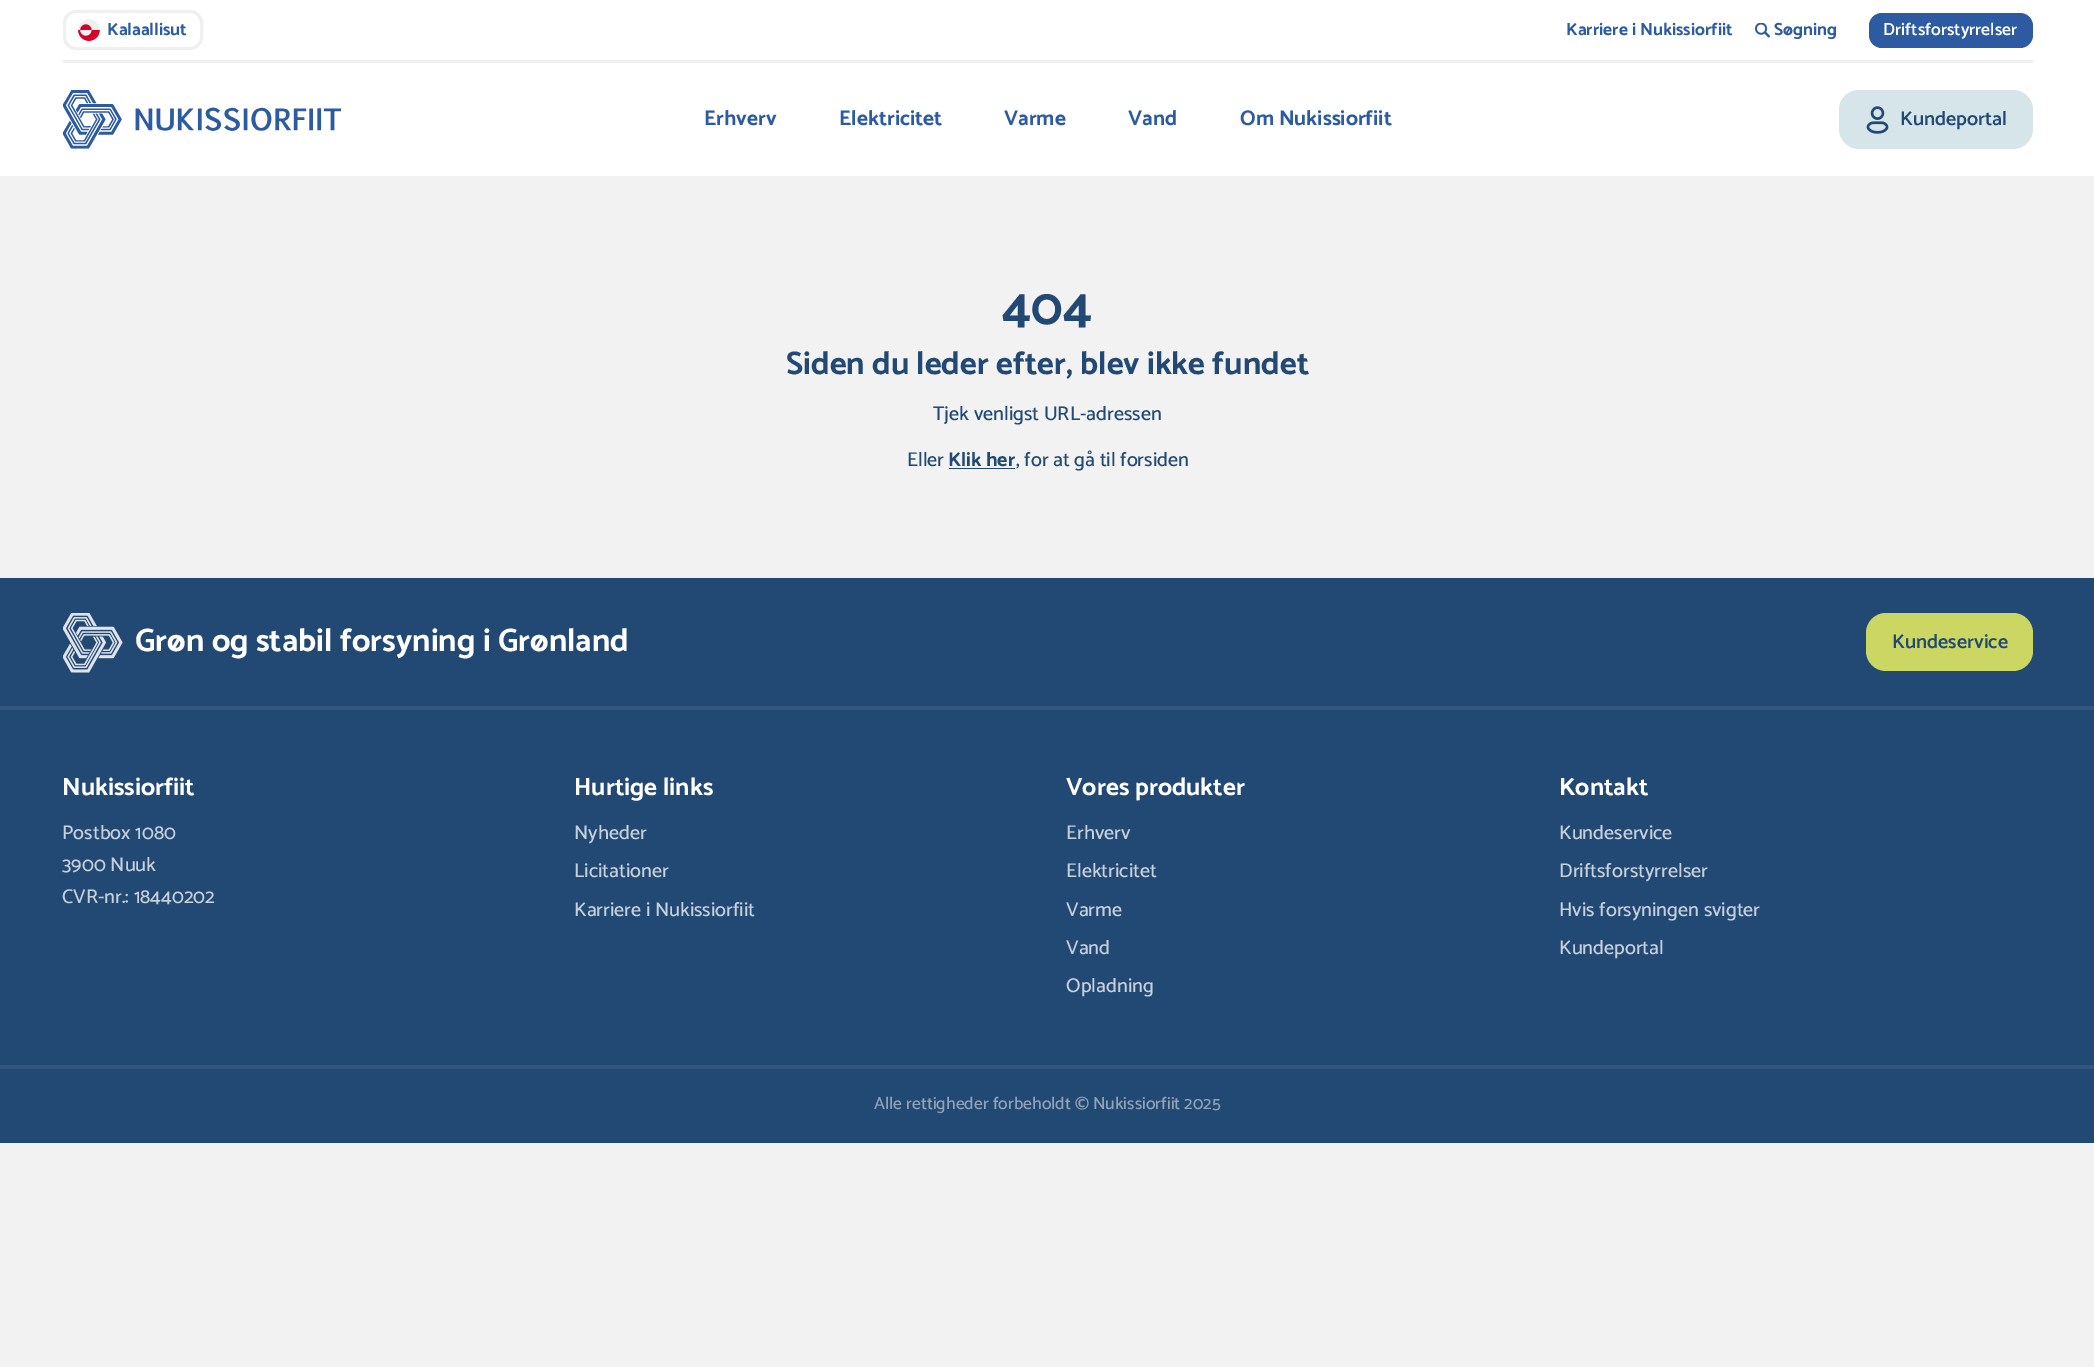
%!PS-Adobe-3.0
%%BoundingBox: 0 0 2094 1367
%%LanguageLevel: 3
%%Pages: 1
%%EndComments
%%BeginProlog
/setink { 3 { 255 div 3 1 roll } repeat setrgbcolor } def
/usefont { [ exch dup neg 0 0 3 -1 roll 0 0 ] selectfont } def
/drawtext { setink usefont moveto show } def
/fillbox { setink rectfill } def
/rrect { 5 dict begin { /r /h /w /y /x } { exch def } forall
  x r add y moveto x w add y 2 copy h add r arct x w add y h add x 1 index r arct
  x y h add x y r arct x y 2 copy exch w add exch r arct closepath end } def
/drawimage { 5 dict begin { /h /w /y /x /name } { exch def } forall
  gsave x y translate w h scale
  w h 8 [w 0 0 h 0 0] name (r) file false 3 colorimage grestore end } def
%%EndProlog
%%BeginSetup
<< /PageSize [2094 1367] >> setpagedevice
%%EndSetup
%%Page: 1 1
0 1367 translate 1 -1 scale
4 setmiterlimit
0 0 2094 1367 242 242 242 fillbox
0 0 2094 176 255 255 255 fillbox
240 240 240 setink
3 setlinewidth
64.5 11.5 137 37 11.5 rrect stroke
(assets/img1.rgb) 78 19 22 22 drawimage
(Kalaallisut) 107 35 /Catamaran-Bold 17.5 44 91 161 drawtext
(Karriere i Nukissiorfiit) 1566 35 /Catamaran-Bold 17.5 44 91 161 drawtext
(assets/img2.rgb) 1755 23 15 15 drawimage
(Søgning) 1774 35 /Catamaran-Bold 17.5 44 91 161 drawtext
1869 13 164 35 13 rrect fill
(Driftsforstyrrelser) 1883 35 /Catamaran-SemiBold 17.5 255 255 255 drawtext
63 60 1970 3 240 240 240 fillbox
(assets/img3.rgb) 63 90 278 59 drawimage
(Erhverv) 704 125 /Catamaran-Bold 21.25 44 91 161 drawtext
(Elektricitet) 839 125 /Catamaran-Bold 21.25 44 91 161 drawtext
(Varme) 1004 125 /Catamaran-Bold 21.25 44 91 161 drawtext
(Vand) 1128 125 /Catamaran-Bold 21.25 44 91 161 drawtext
(Om Nukissiorfiit) 1240 125 /Catamaran-Bold 21.25 44 91 161 drawtext
214 229 234 setink
1839 90 194 59 20 rrect fill
(assets/img4.rgb) 1866 106 23 28 drawimage
(Kundeportal) 1900 125 /Catamaran-SemiBold 20 34 73 116 drawtext
(404) 1002 324 /Catamaran-Bold 52 34 73 116 drawtext
(Siden du leder efter, blev ikke fundet) 786 374 /Catamaran-Bold 32.5 34 73 116 drawtext
(Tjek venligst URL-adressen) 933 420 /Catamaran-Medium 20 34 73 116 drawtext
(Eller) 907 466 /Catamaran-Medium 20 34 73 116 drawtext
(Klik her) 948 466 /Catamaran-Bold 20 34 73 116 drawtext
949 468 66 1 34 73 116 fillbox
(, for at gå til forsiden) 1016 466 /Catamaran-Medium 20 34 73 116 drawtext
0 578 2094 128 34 73 116 fillbox
0 706 2094 4 50 87 126 fillbox
(assets/img5.rgb) 63 613 60 60 drawimage
(Grøn og stabil forsyning i Grønland) 135 651 /Catamaran-Bold 32.5 255 255 255 drawtext
204 214 98 setink
1866 613 167 58 20 rrect fill
(Kundeservice) 1892 648 /Catamaran-SemiBold 20 34 73 116 drawtext
0 710 2094 355 34 73 116 fillbox
0 1065 2094 4 50 87 126 fillbox
(Nukissiorfiit) 62 795 /Catamaran-Bold 25 255 255 255 drawtext
(Postbox 1080) 62 839 /Catamaran-Medium 20 199 209 220 drawtext
(3900 Nuuk) 62 871 /Catamaran-Medium 20 199 209 220 drawtext
(CVR-nr.: 18440202) 62 903 /Catamaran-Medium 20 199 209 220 drawtext
(Hurtige links) 574 795 /Catamaran-Bold 25 255 255 255 drawtext
(Nyheder) 574 839 /Catamaran-Medium 20 199 209 220 drawtext
(Licitationer) 574 877 /Catamaran-Medium 20 199 209 220 drawtext
(Karriere i Nukissiorfiit) 574 916 /Catamaran-Medium 20 199 209 220 drawtext
(Vores produkter) 1066 795 /Catamaran-Bold 25 255 255 255 drawtext
(Erhverv) 1066 839 /Catamaran-Medium 20 199 209 220 drawtext
(Elektricitet) 1066 877 /Catamaran-Medium 20 199 209 220 drawtext
(Varme) 1066 916 /Catamaran-Medium 20 199 209 220 drawtext
(Vand) 1066 954 /Catamaran-Medium 20 199 209 220 drawtext
(Opladning) 1066 992 /Catamaran-Medium 20 199 209 220 drawtext
(Kontakt) 1559 795 /Catamaran-Bold 25 255 255 255 drawtext
(Kundeservice) 1559 839 /Catamaran-Medium 20 199 209 220 drawtext
(Driftsforstyrrelser) 1559 877 /Catamaran-Medium 20 199 209 220 drawtext
(Hvis forsyningen svigter) 1559 916 /Catamaran-Medium 20 199 209 220 drawtext
(Kundeportal) 1559 954 /Catamaran-Medium 20 199 209 220 drawtext
0 1069 2094 74 34 73 116 fillbox
(Alle rettigheder forbeholdt © Nukissiorfiit 2025) 874 1109 /Catamaran-Medium 17.5 145 164 186 drawtext
showpage
%%EOF
